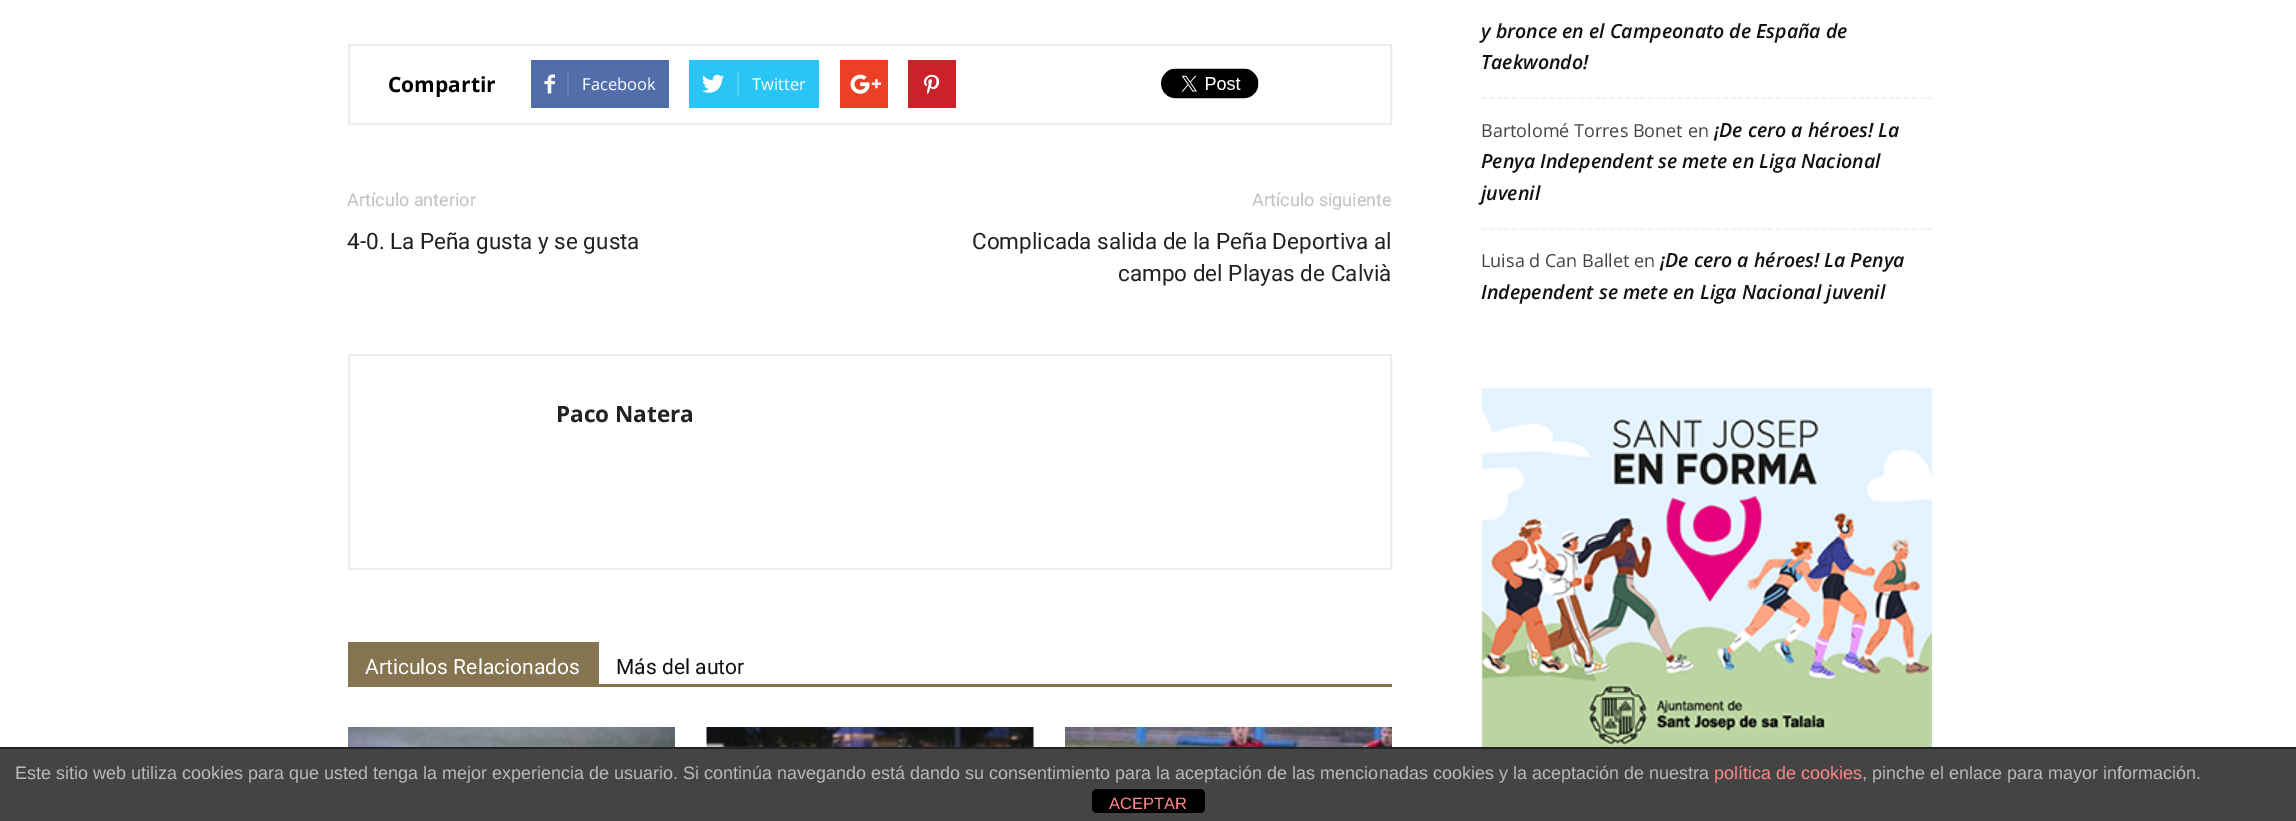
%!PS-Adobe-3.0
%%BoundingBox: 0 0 2296 821
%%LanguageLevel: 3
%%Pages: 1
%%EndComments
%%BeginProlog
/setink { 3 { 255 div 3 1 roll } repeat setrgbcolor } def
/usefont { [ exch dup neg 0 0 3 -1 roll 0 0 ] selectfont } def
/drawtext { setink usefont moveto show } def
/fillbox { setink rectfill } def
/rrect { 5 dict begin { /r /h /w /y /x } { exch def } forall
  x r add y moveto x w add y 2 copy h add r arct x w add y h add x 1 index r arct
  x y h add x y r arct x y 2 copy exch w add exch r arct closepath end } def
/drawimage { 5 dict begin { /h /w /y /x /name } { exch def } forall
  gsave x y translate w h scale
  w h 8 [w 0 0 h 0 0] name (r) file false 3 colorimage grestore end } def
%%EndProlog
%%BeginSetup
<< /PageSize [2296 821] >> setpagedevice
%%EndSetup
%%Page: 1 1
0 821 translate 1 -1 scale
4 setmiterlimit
0 0 2296 821 255 255 255 fillbox
237 237 237 setink
2 setlinewidth
349 45 1042 79 rectstroke
(Compartir) 388 92 /OpenSans-Bold 21 0 0 0 drawtext
531 60 138 48 81 110 171 fillbox
(assets/img1.rgb) 544 74 11 20 drawimage
567 72 2 24 98 125 179 fillbox
(Facebook) 582 90 /OpenSans-Regular 16.5 255 255 255 drawtext
689 60 130 48 41 197 246 fillbox
(assets/img2.rgb) 702 74 22 19 drawimage
737 72 2 24 84 209 248 fillbox
(Twitter) 752 90 /OpenSans-Regular 16.5 255 255 255 drawtext
840 60 48 48 235 64 38 fillbox
(assets/img3.rgb) 850 74 31 20 drawimage
908 60 48 48 202 33 42 fillbox
(assets/img4.rgb) 924 74 16 21 drawimage
(assets/img5.rgb) 1161 68 98 31 drawimage
(Artículo anterior) 347 206 /Roboto-Regular 18 193 193 193 drawtext
(4-0. La Peña gusta y se gusta) 347 249 /Roboto-Regular 22.5 34 34 34 drawtext
(Artículo siguiente) 1252 206 /Roboto-Regular 18 193 193 193 drawtext
(Complicada salida de la Peña Deportiva al) 972 249 /Roboto-Regular 22.5 34 34 34 drawtext
(campo del Playas de Calvià) 1118 281 /Roboto-Regular 22.5 34 34 34 drawtext
237 237 237 setink
349 355 1042 214 rectstroke
(Paco Natera) 556 422 /OpenSans-Bold 22.5 34 34 34 drawtext
348 684 1044 3 133 116 80 fillbox
348 642 251 42 133 116 80 fillbox
(Articulos Relacionados) 365 674 /Roboto-Regular 21 255 255 255 drawtext
(Más del autor) 616 674 /Roboto-Regular 21 17 17 17 drawtext
(assets/img6.rgb) 348 727 327 20 drawimage
(assets/img7.rgb) 706 727 328 20 drawimage
(assets/img8.rgb) 1065 727 327 20 drawimage
241 241 241 setink
1.5 setlinewidth
[4.5 3.04] 0 setdash
1482 98 moveto 1932 98 lineto stroke
(y bronce en el Campeonato de España de) 1481 38 /OpenSans-SemiBoldItalic 19.5 17 17 17 drawtext
(Taekwondo!) 1481 69 /OpenSans-SemiBoldItalic 19.5 17 17 17 drawtext
241 241 241 setink
1482 229 moveto 1932 229 lineto stroke
(Bartolomé Torres Bonet en) 1481 137 /OpenSans-Regular 18 68 68 68 drawtext
(¡De cero a héroes! La) 1714 137 /OpenSans-SemiBoldItalic 19.5 17 17 17 drawtext
(Penya Independent se mete en Liga Nacional) 1481 168 /OpenSans-SemiBoldItalic 19.5 17 17 17 drawtext
(juvenil) 1481 200 /OpenSans-SemiBoldItalic 19.5 17 17 17 drawtext
(Luisa d Can Ballet en) 1481 267 /OpenSans-Regular 18 68 68 68 drawtext
(¡De cero a héroes! La Penya) 1660 267 /OpenSans-SemiBoldItalic 19.5 17 17 17 drawtext
(Independent se mete en Liga Nacional juvenil) 1481 299 /OpenSans-SemiBoldItalic 19.5 17 17 17 drawtext
(assets/img9.rgb) 1481 388 451 359 drawimage
0 749 2296 72 68 68 68 fillbox
0 747 2296 2 34 34 34 fillbox
(Este sitio web utiliza cookies para que usted tenga la mejor experiencia de usuario. Si continúa navegando está dando su consentimiento para la aceptación de las mencionadas cookies y la aceptación de nuestra) 15 779 /LiberationSans-Regular 18 187 187 187 drawtext
(política de cookies) 1714 779 /LiberationSans-Regular 18 255 136 136 drawtext
(, pinche el enlace para mayor información.) 1862 779 /LiberationSans-Regular 18 187 187 187 drawtext
0 0 0 setink
1092 789 113 24 5 rrect fill
(ACEPTAR) 1109 809 /LiberationSans-Regular 16.5 255 136 136 drawtext
showpage
%%EOF
